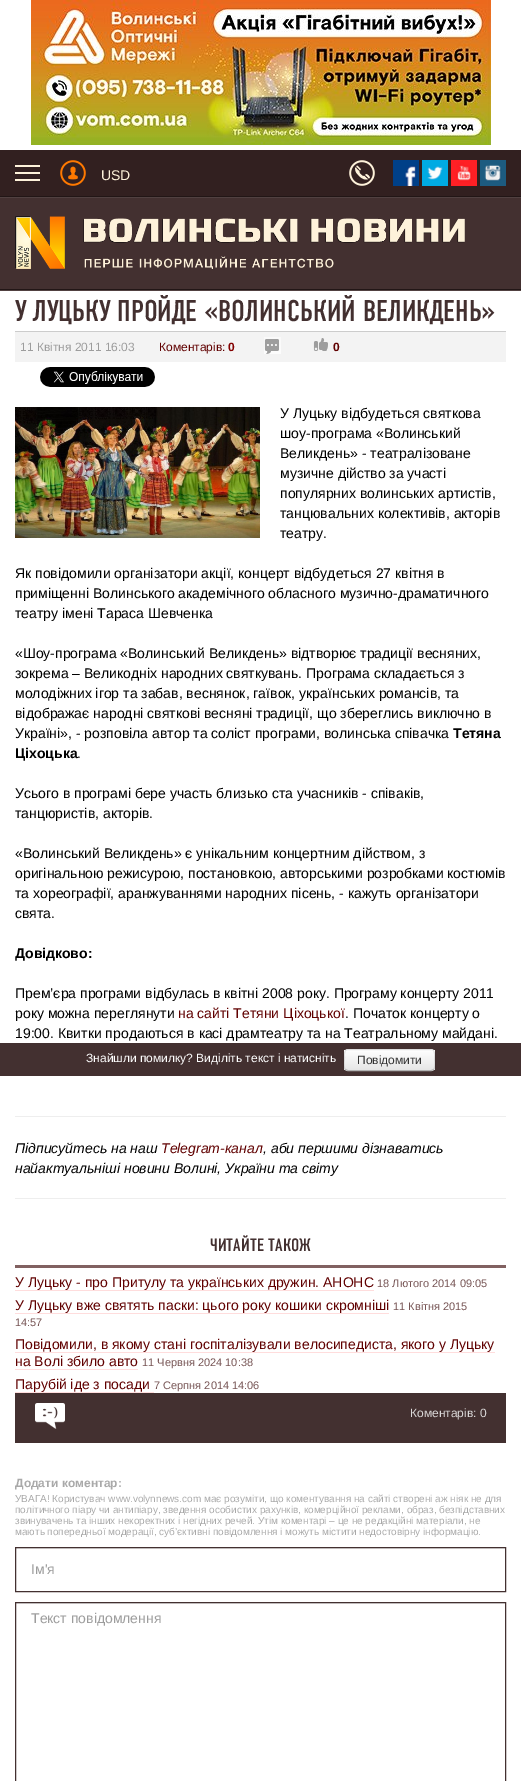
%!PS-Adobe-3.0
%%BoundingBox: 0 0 521 1781
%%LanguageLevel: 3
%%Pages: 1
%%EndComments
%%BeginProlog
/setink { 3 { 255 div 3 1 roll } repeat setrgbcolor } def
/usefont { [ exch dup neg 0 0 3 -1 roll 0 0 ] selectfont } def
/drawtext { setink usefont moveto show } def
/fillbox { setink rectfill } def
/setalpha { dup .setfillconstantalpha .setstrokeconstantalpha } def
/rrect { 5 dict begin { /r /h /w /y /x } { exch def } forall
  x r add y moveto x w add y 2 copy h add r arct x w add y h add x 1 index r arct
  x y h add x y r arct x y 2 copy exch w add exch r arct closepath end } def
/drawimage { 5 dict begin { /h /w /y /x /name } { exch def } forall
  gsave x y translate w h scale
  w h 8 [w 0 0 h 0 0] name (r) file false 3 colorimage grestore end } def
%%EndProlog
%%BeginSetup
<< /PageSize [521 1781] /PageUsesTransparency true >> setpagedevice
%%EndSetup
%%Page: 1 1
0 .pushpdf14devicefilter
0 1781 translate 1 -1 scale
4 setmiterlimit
0 0 521 1781 255 255 255 fillbox
(assets/img1.rgb) 31 0 460 145 drawimage
0 198 521 91 67 48 48 fillbox
0 150 521 46 50 32 32 fillbox
15 165 25 2 254 242 218 fillbox
15 172 25 2 254 242 218 fillbox
15 179 25 2 254 242 218 fillbox
(assets/img2.rgb) 60 160 26 26 drawimage
(USD) 101 180 /LiberationSans-Regular 14 254 242 218 drawtext
(assets/img3.rgb) 349 160 26 26 drawimage
(assets/img4.rgb) 393 160 26 26 drawimage
(assets/img5.rgb) 422 160 26 26 drawimage
(assets/img6.rgb) 451 160 26 26 drawimage
(assets/img7.rgb) 480 160 26 26 drawimage
(assets/img8.rgb) 0 196 521 2 drawimage
(assets/img9.rgb) 15 216 450 53 drawimage
(assets/img8.rgb) 0 289 521 2 drawimage
(У ЛУЦЬКУ ПРОЙДЕ «ВОЛИНСЬКИЙ ВЕЛИКДЕНЬ») 15 321 /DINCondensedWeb-Regular 30 67 48 48 drawtext
15 332 491 30 243 243 243 fillbox
15 331 491 1 204 204 204 fillbox
(11 Квітня 2011 16:03) 20 351 /LiberationSans-Regular 12 157 157 157 drawtext
(Коментарів:) 159 351 /LiberationSans-Regular 12 96 0 0 drawtext
(0) 228 351 /LiberationSans-Bold 12 131 0 0 drawtext
(assets/img10.rgb) 264 337 17 17 drawimage
(assets/img11.rgb) 313 338 15 13 drawimage
(0) 333 351 /LiberationSans-Bold 12 96 0 0 drawtext
(assets/img12.rgb) 40 367 115 20 drawimage
(assets/img13.rgb) 15 407 245 131 drawimage
(У Луцьку відбудеться святкова) 280 418 /LiberationSans-Regular 14 0 0 0 drawtext
(шоу-програма «Волинський) 280 438 /LiberationSans-Regular 14 0 0 0 drawtext
(Великдень» - театралізоване) 280 458 /LiberationSans-Regular 14 0 0 0 drawtext
(музичне дійство за участі) 280 478 /LiberationSans-Regular 14 0 0 0 drawtext
(популярних волинських артистів,) 280 498 /LiberationSans-Regular 14 0 0 0 drawtext
(танцювальних колективів, акторів) 280 518 /LiberationSans-Regular 14 0 0 0 drawtext
(театру.) 280 538 /LiberationSans-Regular 14 0 0 0 drawtext
(Як повідомили організатори акції, концерт відбудеться 27 квітня в) 15 578 /LiberationSans-Regular 14 0 0 0 drawtext
(приміщенні Волинського академічного обласного музично-драматичного) 15 598 /LiberationSans-Regular 14 0 0 0 drawtext
(театру імені Тараса Шевченка) 15 618 /LiberationSans-Regular 14 0 0 0 drawtext
(«Шоу-програма «Волинський Великдень» відтворює традиції весняних,) 15 658 /LiberationSans-Regular 14 0 0 0 drawtext
(зокрема – Великодніх народних святкувань. Програма складається з) 15 678 /LiberationSans-Regular 14 0 0 0 drawtext
(молодіжних ігор та забав, веснянок, гаївок, українських романсів, та) 15 698 /LiberationSans-Regular 14 0 0 0 drawtext
(відображає народні святкові весняні традиції, що збереглись виключно в) 15 718 /LiberationSans-Regular 14 0 0 0 drawtext
(Україні», - розповіла автор та соліст програми, волинська співачка) 15 738 /LiberationSans-Regular 14 0 0 0 drawtext
(Тетяна) 453 738 /LiberationSans-Bold 14 0 0 0 drawtext
(Ціхоцька) 15 758 /LiberationSans-Bold 14 0 0 0 drawtext
(.) 77 758 /LiberationSans-Regular 14 0 0 0 drawtext
(Усього в програмі бере участь близько ста учасників - співаків,) 15 798 /LiberationSans-Regular 14 0 0 0 drawtext
(танцюристів, акторів.) 15 818 /LiberationSans-Regular 14 0 0 0 drawtext
(«Волинський Великдень» є унікальним концертним дійством, з) 15 858 /LiberationSans-Regular 14 0 0 0 drawtext
(оригінальною режисурою, постановкою, авторськими розробками костюмів) 15 878 /LiberationSans-Regular 14 0 0 0 drawtext
(та хореографії, аранжуваннями народних пісень, - кажуть організатори) 15 898 /LiberationSans-Regular 14 0 0 0 drawtext
(свята.) 15 918 /LiberationSans-Regular 14 0 0 0 drawtext
(Довідково:) 15 958 /LiberationSans-Bold 14 0 0 0 drawtext
(Прем’єра програми відбулась в квітні 2008 року. Програму концерту 2011) 15 998 /LiberationSans-Regular 14 0 0 0 drawtext
(року можна переглянути) 15 1018 /LiberationSans-Regular 14 0 0 0 drawtext
(на сайті Тетяни Ціхоцької) 178 1018 /LiberationSans-Regular 14 96 0 0 drawtext
(. Початок концерту о) 345 1018 /LiberationSans-Regular 14 0 0 0 drawtext
(19:00. Квитки продаються в касі драмтеатру та на Театральному майдані.) 15 1038 /LiberationSans-Regular 14 0 0 0 drawtext
0 1043 521 33 67 48 48 fillbox
(Знайшли помилку? Виділіть текст і натисніть) 86 1062 /LiberationSans-Regular 12 255 255 255 drawtext
245 245 245 setink
344 1049 91 22 4 rrect fill
gsave
344 1049 91 22 4 rrect clip newpath
gsave 344 1050 moveto 435 1050 lineto 435 1070 lineto 344 1070 lineto closepath clip newpath
<< /ShadingType 2 /ColorSpace /DeviceRGB /Coords [390 1050 390 1070] /Extend [true true] /Function << /FunctionType 2 /Domain [0 1] /C0 [1 1 1] /C1 [0.902 0.902 0.902] /N 1 >> >> shfill grestore
grestore
179 179 179 setink
433.5 1069.5 moveto 431.5 1070.5 lineto 347.5 1070.5 lineto 345.5 1069.5 lineto stroke
0.1 setalpha
0 0 0 setink
345.5 1069.5 moveto 343 1067 344.5 1060.5 344.5 1057.5 curveto 344.5 1055 343.5 1049.5 348 1049.5 curveto 431 1049.5 lineto 435.5 1049.5 434.5 1055 434.5 1057.5 curveto 434.5 1060.5 436 1067 433.5 1069.5 curveto stroke
1 setalpha
(Повідомити) 357 1064 /LiberationSans-Regular 12 51 51 51 drawtext
15 1116 491 1 238 238 238 fillbox
(Підписуйтесь на наш) 15 1153 /LiberationSans-Italic 14 0 0 0 drawtext
(Telegram-канал) 161 1153 /LiberationSans-Italic 14 96 0 0 drawtext
(, аби першими дізнаватись) 263 1153 /LiberationSans-Italic 14 0 0 0 drawtext
(найактуальніші новини Волині, України та світу) 15 1173 /LiberationSans-Italic 14 0 0 0 drawtext
15 1198 491 1 238 238 238 fillbox
15 1265 491 3 129 97 97 fillbox
(ЧИТАЙТЕ ТАКОЖ) 210 1251 /DINCondensedWeb-Regular 18 67 48 48 drawtext
(У Луцьку - про Притулу та українських дружин. АНОНС) 15 1287 /LiberationSans-Regular 14 96 0 0 drawtext
15 1290 359 1 255 221 221 fillbox
(18 Лютого 2014 09:05) 377 1287 /LiberationSans-Regular 11 119 85 85 drawtext
(У Луцьку вже святять паски: цього року кошики скромніші) 15 1310 /LiberationSans-Regular 14 96 0 0 drawtext
15 1313 374 1 255 221 221 fillbox
(11 Квітня 2015) 393 1310 /LiberationSans-Regular 11 119 85 85 drawtext
(14:57) 15 1326 /LiberationSans-Regular 11 119 85 85 drawtext
(Повідомили, в якому стані госпіталізували велосипедиста, якого у Луцьку) 15 1349 /LiberationSans-Regular 14 96 0 0 drawtext
15 1352 480 1 255 221 221 fillbox
(на Волі збило авто) 15 1366 /LiberationSans-Regular 14 96 0 0 drawtext
15 1369 123 1 255 221 221 fillbox
(11 Червня 2024 10:38) 142 1366 /LiberationSans-Regular 11 119 85 85 drawtext
(Парубій іде з посади) 15 1389 /LiberationSans-Regular 14 96 0 0 drawtext
15 1392 139 1 255 221 221 fillbox
(7 Серпня 2014 14:06) 154 1389 /LiberationSans-Regular 11 119 85 85 drawtext
15 1393 491 50 67 48 48 fillbox
(assets/img14.rgb) 35 1403 30 26 drawimage
(Коментарів: 0) 410 1417 /LiberationSans-Regular 12 218 216 216 drawtext
(Додати коментар:) 15 1487 /LiberationSans-Bold 12 169 169 169 drawtext
(УВАГА! Користувач www.volynnews.com має розуміти, що коментування на сайті створені аж ніяк не для) 15 1502 /LiberationSans-Regular 10 169 169 169 drawtext
(політичного піару чи антипіару, зведення особистих рахунків, комерційної реклами, образ, безпідставних) 15 1513 /LiberationSans-Regular 10 169 169 169 drawtext
(звинувачень та інших некоректних і негідних речей. Утім коментарі – це не редакційні матеріали, не) 15 1524 /LiberationSans-Regular 10 169 169 169 drawtext
(мають попередньої модерації, суб’єктивні повідомлення і можуть містити недостовірну інформацію.) 15 1535 /LiberationSans-Regular 10 169 169 169 drawtext
16 1548 489 1 236 236 236 fillbox
67 48 48 setink
15.5 1547.5 490 44 rectstroke
(Ім'я) 31 1574 /LiberationSans-Regular 14 157 157 157 drawtext
16 1603 489 1 236 236 236 fillbox
67 48 48 setink
15.5 1602.5 490 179 rectstroke
(Текст повідомлення) 31 1623 /LiberationSans-Regular 14 157 157 157 drawtext
.poppdf14devicefilter showpage
%%EOF
